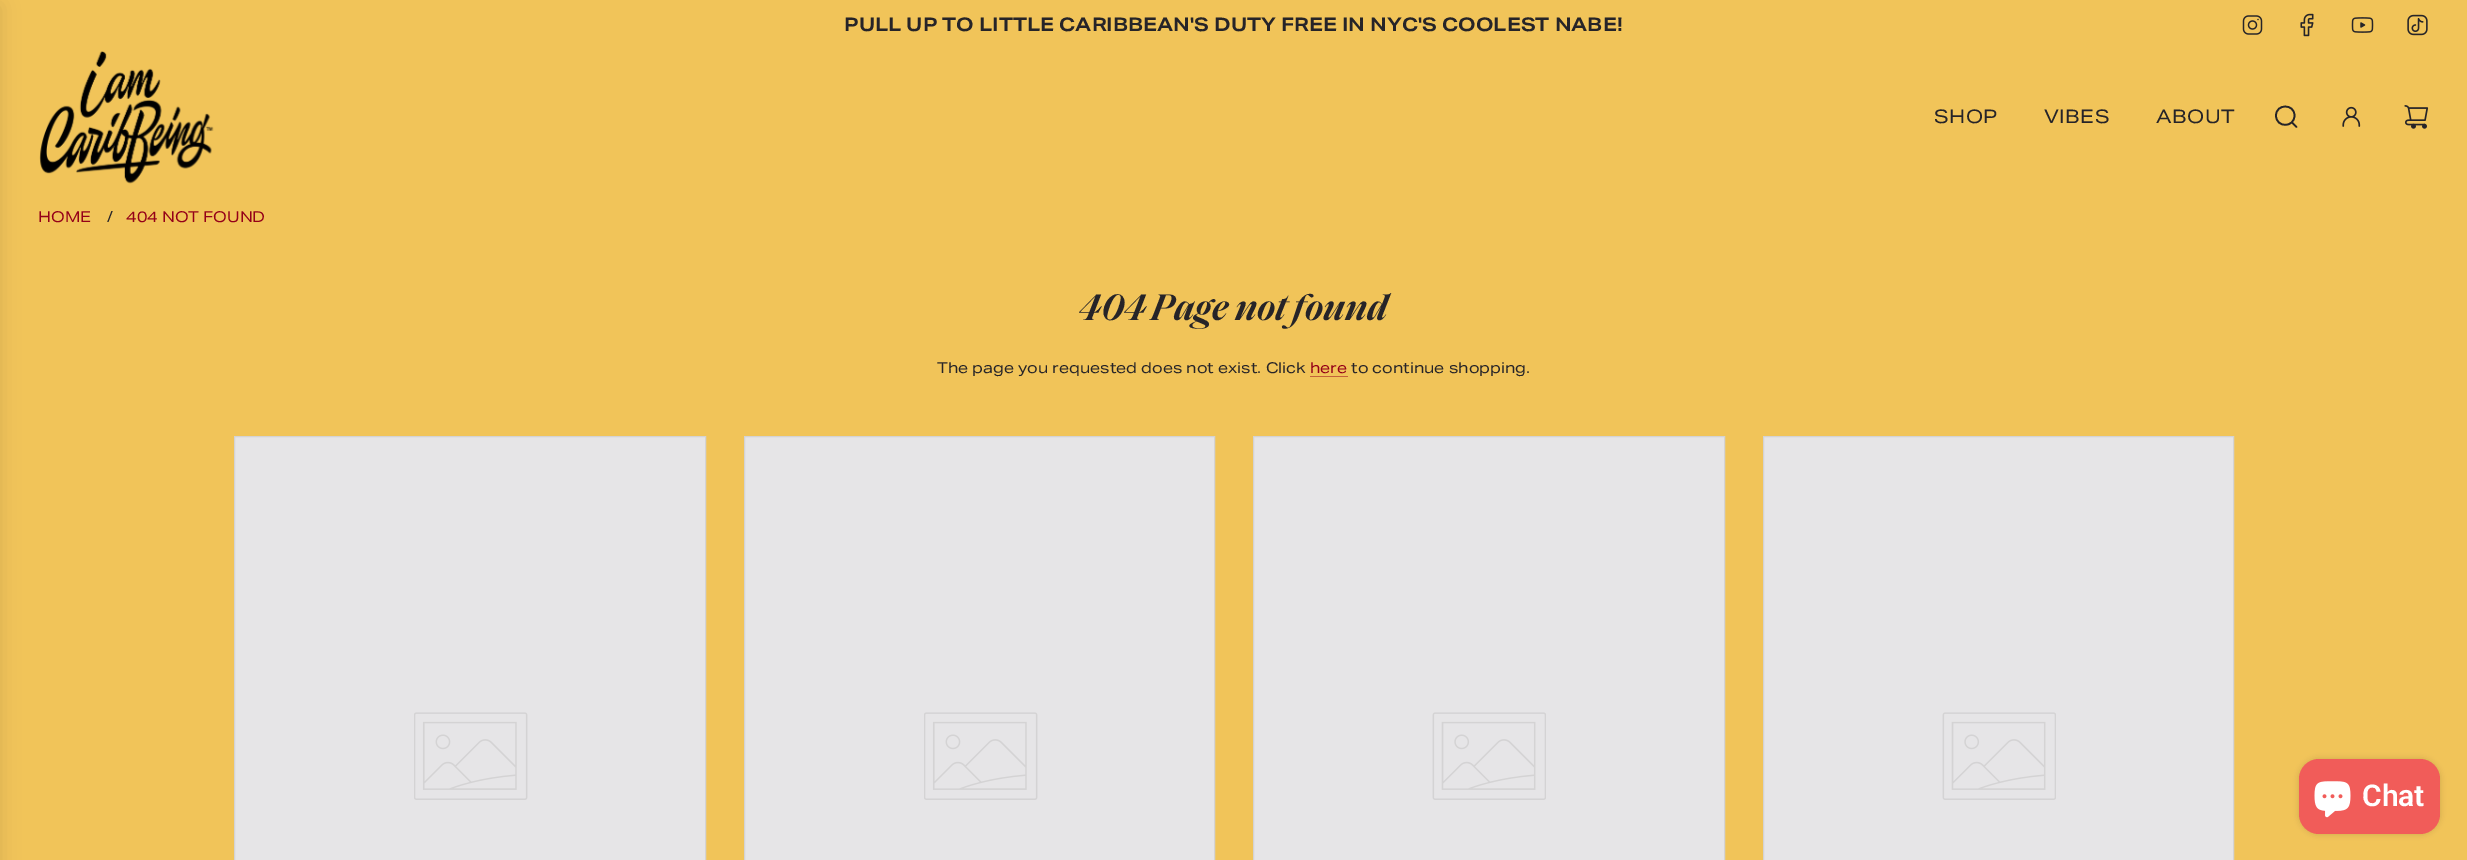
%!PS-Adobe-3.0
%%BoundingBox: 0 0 2467 860
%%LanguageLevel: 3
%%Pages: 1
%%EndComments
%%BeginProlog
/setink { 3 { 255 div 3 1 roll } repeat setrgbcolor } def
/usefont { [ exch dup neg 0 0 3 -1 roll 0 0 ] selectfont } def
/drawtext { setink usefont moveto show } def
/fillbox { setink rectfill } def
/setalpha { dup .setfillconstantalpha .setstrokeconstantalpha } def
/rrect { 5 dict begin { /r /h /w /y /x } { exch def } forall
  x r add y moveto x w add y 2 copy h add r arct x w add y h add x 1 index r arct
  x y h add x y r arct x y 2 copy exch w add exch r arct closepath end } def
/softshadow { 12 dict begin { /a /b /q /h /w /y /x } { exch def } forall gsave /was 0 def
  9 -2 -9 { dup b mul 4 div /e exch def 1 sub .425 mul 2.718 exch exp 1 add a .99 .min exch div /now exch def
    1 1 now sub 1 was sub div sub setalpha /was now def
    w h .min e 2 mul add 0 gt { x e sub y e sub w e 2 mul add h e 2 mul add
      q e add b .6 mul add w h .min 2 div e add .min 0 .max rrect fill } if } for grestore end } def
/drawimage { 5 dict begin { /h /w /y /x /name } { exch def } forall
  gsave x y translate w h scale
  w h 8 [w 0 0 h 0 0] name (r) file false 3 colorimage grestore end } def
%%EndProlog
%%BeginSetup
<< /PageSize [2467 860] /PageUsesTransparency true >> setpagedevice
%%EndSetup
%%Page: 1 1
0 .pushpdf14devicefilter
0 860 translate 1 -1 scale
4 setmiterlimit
0 0 2467 860 241 196 89 fillbox
(PULL UP TO LITTLE CARIBBEAN'S DUTY FREE IN NYC'S COOLEST NABE!) 844 31 /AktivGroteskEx-Bold 18.75 38 36 40 drawtext
(assets/img1.rgb) 2242 15 21 20 drawimage
(assets/img2.rgb) 2300 13 14 24 drawimage
(assets/img3.rgb) 2351 17 23 16 drawimage
(assets/img4.rgb) 2407 14 21 22 drawimage
0 0 0 setink
-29 6 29 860 0 9.5 0.1 softshadow
(assets/img5.rgb) 39 51 175 133 drawimage
/AktivGroteskEx-Regular 18.75 usefont
38 36 40 setink
1934 123 moveto 0.5 0 (SHOP) ashow
2044 123 moveto 0.5 0 (VIBES) ashow
2156 123 moveto 0.5 0 (ABOUT) ashow
1.7 setlinewidth
1 setlinecap
1 setlinejoin
2292 122.5 moveto 2296.5 127 lineto 2276 115.5 moveto 2276 128 2294.5 128 2294.5 115.5 curveto 2294.5 103.5 2276 103.5 2276 115.5 curveto closepath stroke
(assets/img6.rgb) 2342 106 19 21 drawimage
(assets/img7.rgb) 2404 105 25 24 drawimage
(HOME) 38 222 /AktivGroteskEx-Regular 15 148 0 24 drawtext
(/) 107 222 /AktivGroteskEx-Regular 15 38 36 40 drawtext
(404 NOT FOUND) 126 222 /AktivGroteskEx-Regular 15 148 0 24 drawtext
(404 Page not found) 1079 320 /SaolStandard-SemiBoldItalic 37.5 38 36 40 drawtext
(The page you requested does not exist. Click) 937 373 /AktivGroteskEx-Regular 15 38 36 40 drawtext
(here) 1310 373 /AktivGroteskEx-Regular 15 148 0 24 drawtext
1310 376 38 1 195 98 57 fillbox
(to continue shopping.) 1351 373 /AktivGroteskEx-Regular 15 38 36 40 drawtext
230 229 231 setink
234.5 436.5 moveto 705.5 436.5 lineto 705.5 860.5 lineto 234.5 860.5 lineto closepath gsave fill grestore
212 211 212 setink
1 setlinewidth
0 setlinecap
0 setlinejoin
stroke
(assets/img8.rgb) 414 712 114 88 drawimage
230 229 231 setink
744.5 436.5 moveto 1214.5 436.5 lineto 1214.5 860.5 lineto 744.5 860.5 lineto closepath gsave fill grestore
212 211 212 setink
stroke
(assets/img8.rgb) 924 712 114 88 drawimage
230 229 231 setink
1253.5 436.5 moveto 1724.5 436.5 lineto 1724.5 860.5 lineto 1253.5 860.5 lineto closepath gsave fill grestore
212 211 212 setink
stroke
(assets/img9.rgb) 1432 712 114 88 drawimage
230 229 231 setink
1763.5 436.5 moveto 2233.5 436.5 lineto 2233.5 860.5 lineto 1763.5 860.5 lineto closepath gsave fill grestore
212 211 212 setink
stroke
(assets/img9.rgb) 1942 712 114 88 drawimage
0 0 0 setink
2299 759 141 75 20 3 0.15 softshadow
241 92 89 setink
2299 759 141 75 20 rrect fill
(assets/img10.rgb) 2314 781 37 37 drawimage
(Chat) 2362 806 /Roboto-SemiBold 30 255 255 255 drawtext
.poppdf14devicefilter showpage
%%EOF
